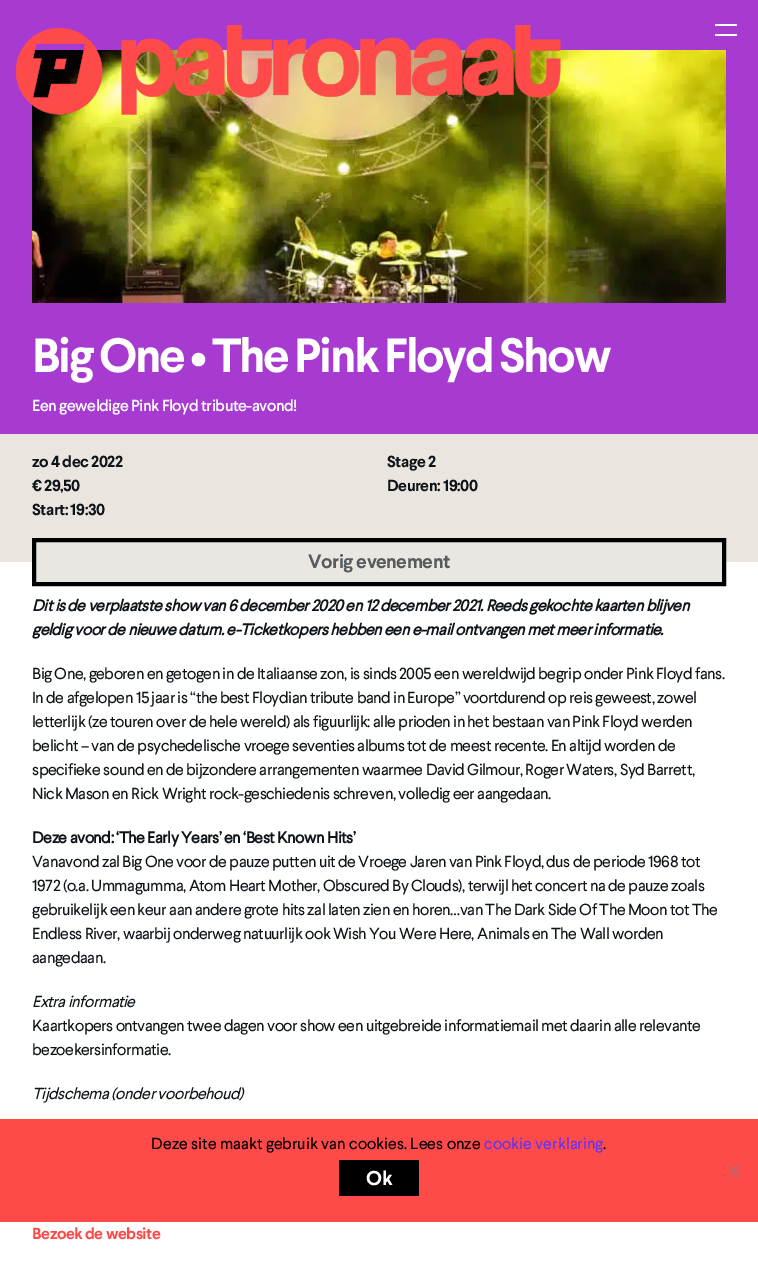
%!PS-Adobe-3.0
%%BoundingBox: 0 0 758 1270
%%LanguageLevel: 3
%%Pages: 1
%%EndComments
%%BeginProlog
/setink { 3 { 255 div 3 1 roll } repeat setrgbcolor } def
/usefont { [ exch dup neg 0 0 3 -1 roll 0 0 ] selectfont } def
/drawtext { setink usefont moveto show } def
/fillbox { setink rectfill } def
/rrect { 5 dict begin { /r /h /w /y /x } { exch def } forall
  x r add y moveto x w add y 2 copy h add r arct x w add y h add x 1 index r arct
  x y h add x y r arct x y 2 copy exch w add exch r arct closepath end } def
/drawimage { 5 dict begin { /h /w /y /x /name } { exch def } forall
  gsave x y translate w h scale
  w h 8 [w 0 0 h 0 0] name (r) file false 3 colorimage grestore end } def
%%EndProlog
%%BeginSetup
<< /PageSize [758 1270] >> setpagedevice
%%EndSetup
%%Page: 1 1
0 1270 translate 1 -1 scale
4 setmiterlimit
0 0 758 1270 255 255 255 fillbox
0 0 758 434 167 59 209 fillbox
(assets/img2.rgb) 32 50 694 253 drawimage
(assets/img1.rgb) 16 25 545 90 drawimage
255 255 255 setink
715 24 22 2 1 rrect fill
715 34 22 2 1 rrect fill
/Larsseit-Bold 48 usefont
32 372 moveto -2.4 0 (Big One • The Pink Floyd Show) ashow
/Larsseit-Medium 16 usefont
32 411 moveto -0.48 0 (Een geweldige Pink Floyd tribute-avond!) ashow
0 434 758 128 234 230 223 fillbox
/Larsseit-Bold 16 usefont
14 20 26 setink
32 467 moveto -0.48 0 (zo 4 dec 2022) ashow
387 467 moveto -0.48 0 (Stage 2) ashow
32 491 moveto -0.48 0 (€ 29,50) ashow
387 491 moveto -0.48 0 (Deuren: 19:00) ashow
32 515 moveto -0.48 0 (Start: 19:30) ashow
234 231 226 setink
34 540 moveto 724 540 lineto 724 584 lineto 34 584 lineto closepath gsave fill grestore
0 0 0 setink
4 setlinewidth
stroke
/Larsseit-Bold 19.25 usefont
85 91 95 setink
308 568 moveto -0.48 0 (Vorig evenement) ashow
/Larsseit-BoldItalic 16 usefont
14 20 26 setink
32 611 moveto -0.48 0 (Dit is de verplaatste show van 6 december 2020 en 12 december 2021. Reeds gekochte kaarten blijven) ashow
32 635 moveto -0.48 0 (geldig voor de nieuwe datum. e-Ticketkopers hebben een e-mail ontvangen met meer informatie.) ashow
/Larsseit-Regular 16 usefont
32 679 moveto -0.48 0 (Big One, geboren en getogen in de Italiaanse zon, is sinds 2005 een wereldwijd begrip onder Pink Floyd fans.) ashow
32 703 moveto -0.48 0 (In de afgelopen 15 jaar is “the best Floydian tribute band in Europe” voortdurend op reis geweest, zowel) ashow
32 727 moveto -0.48 0 (letterlijk \(ze touren over de hele wereld\) als figuurlijk: alle prioden in het bestaan van Pink Floyd werden) ashow
32 751 moveto -0.48 0 (belicht – van de psychedelische vroege seventies albums tot de meest recente. En altijd worden de) ashow
32 775 moveto -0.48 0 (specifieke sound en de bijzondere arrangementen waarmee David Gilmour, Roger Waters, Syd Barrett,) ashow
32 799 moveto -0.48 0 (Nick Mason en Rick Wright rock-geschiedenis schreven, volledig eer aangedaan.) ashow
/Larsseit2-Bold 16 usefont
32 843 moveto -0.48 0 (Deze avond: ‘The Early Years’ en ‘Best Known Hits’) ashow
/Larsseit-Regular 16 usefont
32 867 moveto -0.48 0 (Vanavond zal Big One voor de pauze putten uit de Vroege Jaren van Pink Floyd, dus de periode 1968 tot) ashow
32 891 moveto -0.48 0 (1972 \(o.a. Ummagumma, Atom Heart Mother, Obscured By Clouds\), terwijl het concert na de pauze zoals) ashow
32 915 moveto -0.48 0 (gebruikelijk een keur aan andere grote hits zal laten zien en horen…van The Dark Side Of The Moon tot The) ashow
32 939 moveto -0.48 0 (Endless River, waarbij onderweg natuurlijk ook Wish You Were Here, Animals en The Wall worden) ashow
32 963 moveto -0.48 0 (aangedaan.) ashow
/Larsseit-Italic 16 usefont
32 1007 moveto -0.48 0 (Extra informatie) ashow
/Larsseit-Regular 16 usefont
32 1031 moveto -0.48 0 (Kaartkopers ontvangen twee dagen voor show een uitgebreide informatiemail met daarin alle relevante) ashow
32 1055 moveto -0.48 0 (bezoekersinformatie.) ashow
/Larsseit-Italic 16 usefont
32 1099 moveto -0.48 0 (Tijdschema \(onder voorbehoud\)) ashow
/Larsseit-Bold 16 usefont
255 74 74 setink
32 1239 moveto -0.48 0 (Bezoek de website) ashow
0 1119 758 103 255 74 74 fillbox
(Deze site maakt gebruik van cookies. Lees onze) 151 1149 /Larsseit-Regular 16 0 0 0 drawtext
(cookie verklaring) 484 1149 /Larsseit-Regular 16 97 51 248 drawtext
(.) 603 1149 /Larsseit-Regular 16 0 0 0 drawtext
339 1160 80 36 0 0 0 fillbox
(Ok) 366 1185 /Larsseit-Bold 20 255 255 255 drawtext
192 101 101 setink
738.5 1165 moveto 740 1166.5 lineto 729.5 1177 lineto 728 1175.5 lineto closepath fill
728 1166.5 moveto 729.5 1165 lineto 740 1175.5 lineto 738.5 1177 lineto closepath fill
showpage
%%EOF
